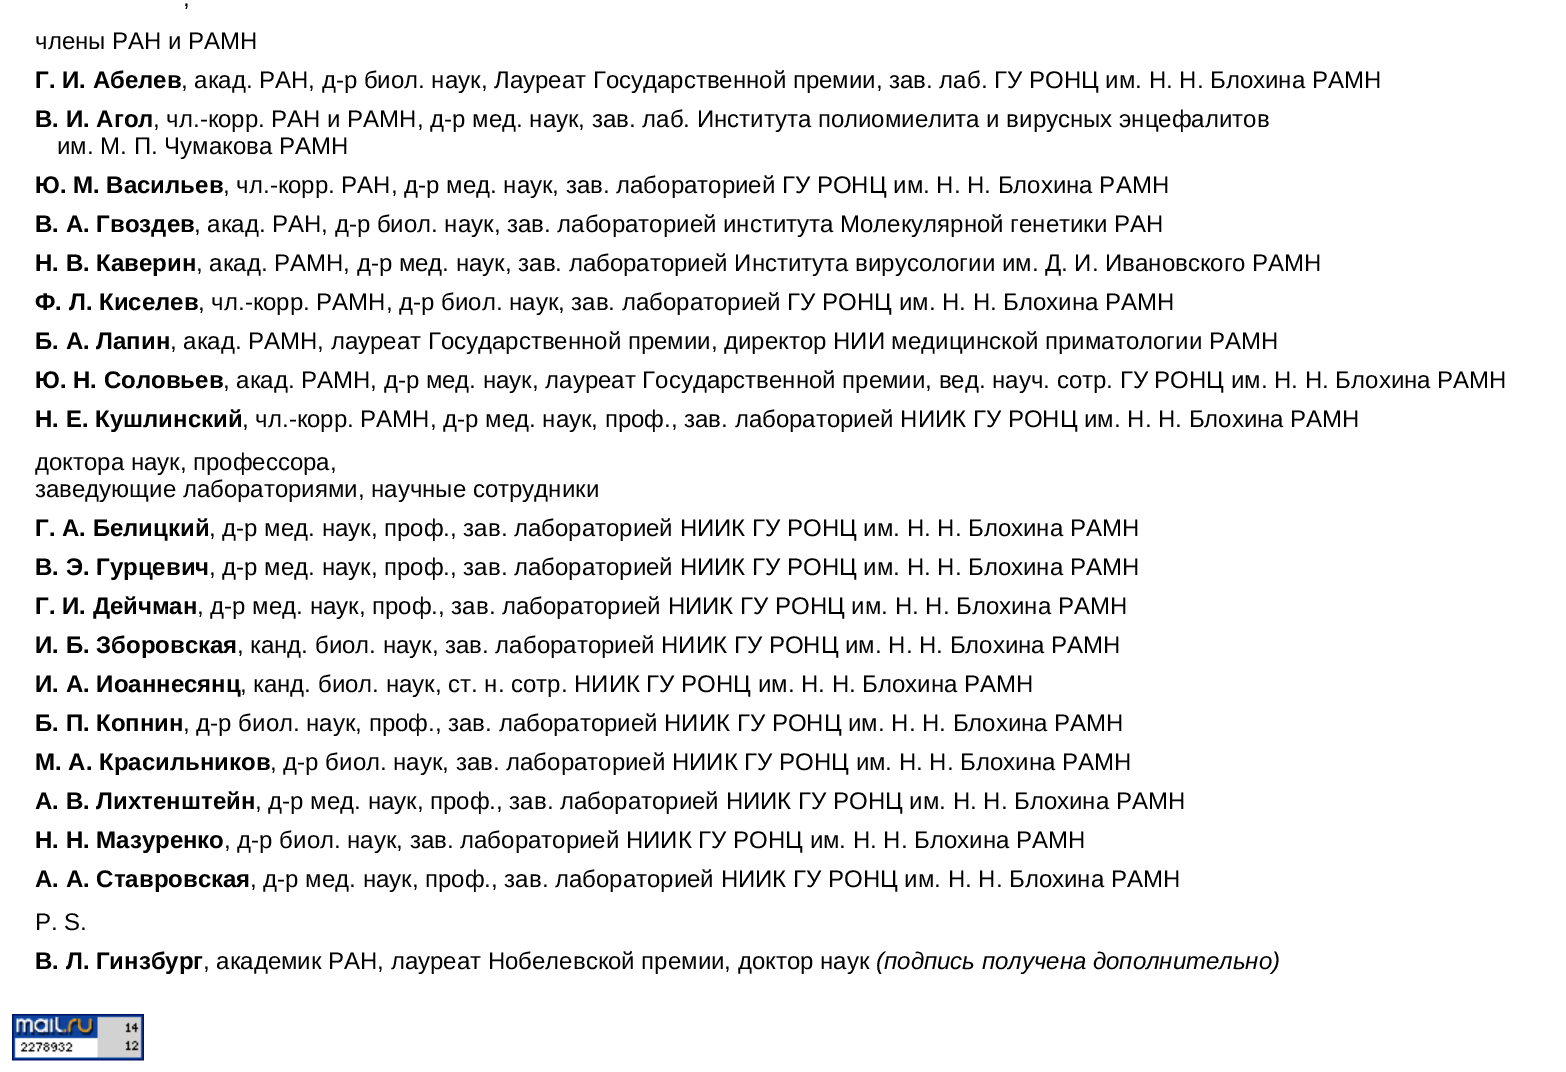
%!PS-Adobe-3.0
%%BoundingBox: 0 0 1566 1072
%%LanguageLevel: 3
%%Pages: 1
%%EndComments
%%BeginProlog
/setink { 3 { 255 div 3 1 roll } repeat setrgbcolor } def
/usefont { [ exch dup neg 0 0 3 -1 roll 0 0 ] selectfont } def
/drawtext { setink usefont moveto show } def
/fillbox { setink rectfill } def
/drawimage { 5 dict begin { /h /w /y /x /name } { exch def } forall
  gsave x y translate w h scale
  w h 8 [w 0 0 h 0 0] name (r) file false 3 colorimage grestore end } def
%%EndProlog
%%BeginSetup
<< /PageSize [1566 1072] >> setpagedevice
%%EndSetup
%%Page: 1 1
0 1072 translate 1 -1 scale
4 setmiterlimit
0 0 1566 1072 255 255 255 fillbox
(,) 183 6 /LiberationSans-Regular 24 0 0 0 drawtext
(члены РАН и РАМН) 35 49 /LiberationSans-Regular 24 0 0 0 drawtext
(Г. И. Абелев) 35 88 /LiberationSans-Bold 24 0 0 0 drawtext
(, акад. РАН, д-р биол. наук, Лауреат Государственной премии, зав. лаб. ГУ РОНЦ им. Н. Н. Блохина РАМН) 181 88 /LiberationSans-Regular 24 0 0 0 drawtext
(В. И. Агол) 35 127 /LiberationSans-Bold 24 0 0 0 drawtext
(, чл.-корр. РАН и РАМН, д-р мед. наук, зав. лаб. Института полиомиелита и вирусных энцефалитов) 153 127 /LiberationSans-Regular 24 0 0 0 drawtext
(им. М. П. Чумакова РАМН) 57 154 /LiberationSans-Regular 24 0 0 0 drawtext
(Ю. М. Васильев) 35 193 /LiberationSans-Bold 24 0 0 0 drawtext
(, чл.-корр. РАН, д-р мед. наук, зав. лабораторией ГУ РОНЦ им. Н. Н. Блохина РАМН) 223 193 /LiberationSans-Regular 24 0 0 0 drawtext
(В. А. Гвоздев) 35 232 /LiberationSans-Bold 24 0 0 0 drawtext
(, акад. РАН, д-р биол. наук, зав. лабораторией института Молекулярной генетики РАН) 194 232 /LiberationSans-Regular 24 0 0 0 drawtext
(Н. В. Каверин) 35 271 /LiberationSans-Bold 24 0 0 0 drawtext
(, акад. РАМН, д-р мед. наук, зав. лабораторией Института вирусологии им. Д. И. Ивановского РАМН) 196 271 /LiberationSans-Regular 24 0 0 0 drawtext
(Ф. Л. Киселев) 35 310 /LiberationSans-Bold 24 0 0 0 drawtext
(, чл.-корр. РАМН, д-р биол. наук, зав. лабораторией ГУ РОНЦ им. Н. Н. Блохина РАМН) 198 310 /LiberationSans-Regular 24 0 0 0 drawtext
(Б. А. Лапин) 35 349 /LiberationSans-Bold 24 0 0 0 drawtext
(, акад. РАМН, лауреат Государственной премии, директор НИИ медицинской приматологии РАМН) 170 349 /LiberationSans-Regular 24 0 0 0 drawtext
(Ю. Н. Соловьев) 35 388 /LiberationSans-Bold 24 0 0 0 drawtext
(, акад. РАМН, д-р мед. наук, лауреат Государственной премии, вед. науч. сотр. ГУ РОНЦ им. Н. Н. Блохина РАМН) 223 388 /LiberationSans-Regular 24 0 0 0 drawtext
(Н. Е. Кушлинский) 35 427 /LiberationSans-Bold 24 0 0 0 drawtext
(, чл.-корр. РАМН, д-р мед. наук, проф., зав. лабораторией НИИК ГУ РОНЦ им. Н. Н. Блохина РАМН) 242 427 /LiberationSans-Regular 24 0 0 0 drawtext
(доктора наук, профессора,) 35 470 /LiberationSans-Regular 24 0 0 0 drawtext
(заведующие лабораториями, научные сотрудники) 35 497 /LiberationSans-Regular 24 0 0 0 drawtext
(Г. А. Белицкий) 35 536 /LiberationSans-Bold 24 0 0 0 drawtext
(, д-р мед. наук, проф., зав. лабораторией НИИК ГУ РОНЦ им. Н. Н. Блохина РАМН) 209 536 /LiberationSans-Regular 24 0 0 0 drawtext
(В. Э. Гурцевич) 35 575 /LiberationSans-Bold 24 0 0 0 drawtext
(, д-р мед. наук, проф., зав. лабораторией НИИК ГУ РОНЦ им. Н. Н. Блохина РАМН) 209 575 /LiberationSans-Regular 24 0 0 0 drawtext
(Г. И. Дейчман) 35 614 /LiberationSans-Bold 24 0 0 0 drawtext
(, д-р мед. наук, проф., зав. лабораторией НИИК ГУ РОНЦ им. Н. Н. Блохина РАМН) 197 614 /LiberationSans-Regular 24 0 0 0 drawtext
(И. Б. Зборовская) 35 653 /LiberationSans-Bold 24 0 0 0 drawtext
(, канд. биол. наук, зав. лабораторией НИИК ГУ РОНЦ им. Н. Н. Блохина РАМН) 237 653 /LiberationSans-Regular 24 0 0 0 drawtext
(И. А. Иоаннесянц) 35 692 /LiberationSans-Bold 24 0 0 0 drawtext
(, канд. биол. наук, ст. н. сотр. НИИК ГУ РОНЦ им. Н. Н. Блохина РАМН) 240 692 /LiberationSans-Regular 24 0 0 0 drawtext
(Б. П. Копнин) 35 731 /LiberationSans-Bold 24 0 0 0 drawtext
(, д-р биол. наук, проф., зав. лабораторией НИИК ГУ РОНЦ им. Н. Н. Блохина РАМН) 183 731 /LiberationSans-Regular 24 0 0 0 drawtext
(М. А. Красильников) 35 770 /LiberationSans-Bold 24 0 0 0 drawtext
(, д-р биол. наук, зав. лабораторией НИИК ГУ РОНЦ им. Н. Н. Блохина РАМН) 270 770 /LiberationSans-Regular 24 0 0 0 drawtext
(А. В. Лихтенштейн) 35 809 /LiberationSans-Bold 24 0 0 0 drawtext
(, д-р мед. наук, проф., зав. лабораторией НИИК ГУ РОНЦ им. Н. Н. Блохина РАМН) 255 809 /LiberationSans-Regular 24 0 0 0 drawtext
(Н. Н. Мазуренко) 35 848 /LiberationSans-Bold 24 0 0 0 drawtext
(, д-р биол. наук, зав. лабораторией НИИК ГУ РОНЦ им. Н. Н. Блохина РАМН) 224 848 /LiberationSans-Regular 24 0 0 0 drawtext
(A. А. Ставровская) 35 887 /LiberationSans-Bold 24 0 0 0 drawtext
(, д-р мед. наук, проф., зав. лабораторией НИИК ГУ РОНЦ им. Н. Н. Блохина РАМН) 250 887 /LiberationSans-Regular 24 0 0 0 drawtext
(P. S.) 35 930 /LiberationSans-Regular 24 0 0 0 drawtext
(B. Л. Гинзбург) 35 969 /LiberationSans-Bold 24 0 0 0 drawtext
(, академик РАН, лауреат Нобелевской премии, доктор наук) 203 969 /LiberationSans-Regular 24 0 0 0 drawtext
(\(подпись получена дополнительно\)) 876 969 /LiberationSans-Italic 24 0 0 0 drawtext
(assets/img1.rgb) 12 1014 132 47 drawimage
showpage
%%EOF
